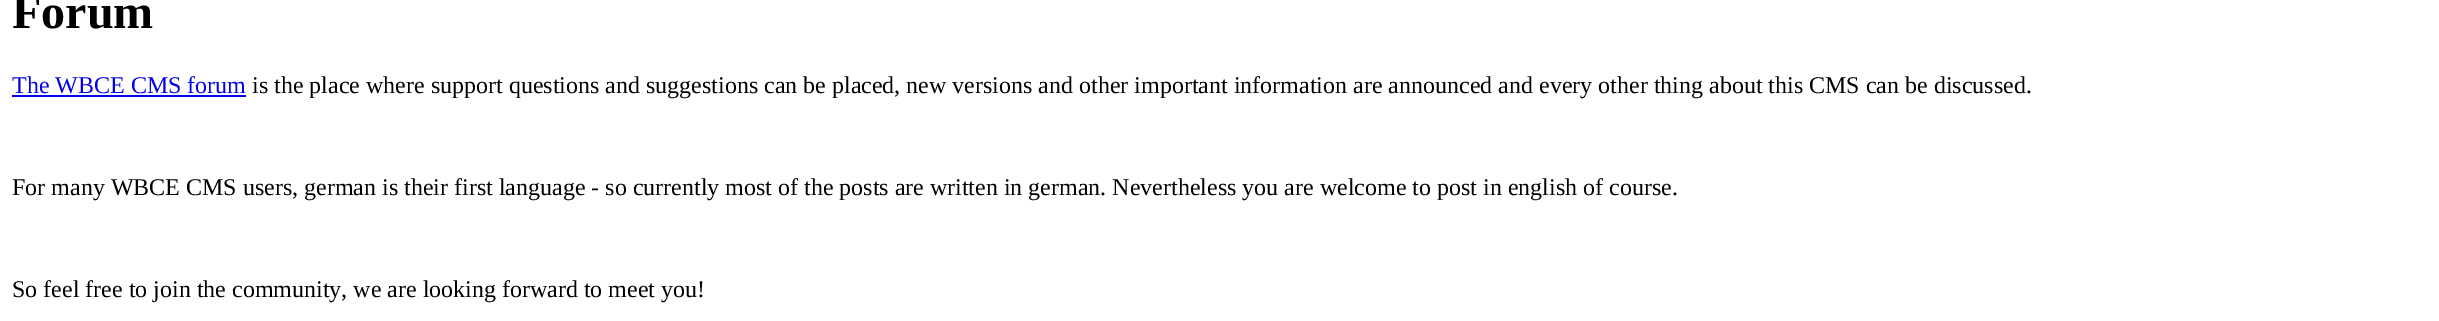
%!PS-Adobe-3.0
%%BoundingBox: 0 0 2439 321
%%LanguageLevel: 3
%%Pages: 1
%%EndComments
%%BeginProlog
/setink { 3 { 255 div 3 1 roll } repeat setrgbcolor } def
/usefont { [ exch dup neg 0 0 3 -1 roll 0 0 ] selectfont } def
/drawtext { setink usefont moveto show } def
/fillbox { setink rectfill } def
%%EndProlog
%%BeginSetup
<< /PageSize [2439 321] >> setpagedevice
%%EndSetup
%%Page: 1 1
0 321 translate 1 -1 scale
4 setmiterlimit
0 0 2439 321 255 255 255 fillbox
(Forum) 12 28 /LiberationSerif-Bold 48 0 0 0 drawtext
(The WBCE CMS forum) 12 93 /LiberationSerif-Regular 24 0 0 238 drawtext
12 95 234 2 0 0 238 fillbox
(is the place where support questions and suggestions can be placed, new versions and other important information are announced and every other thing about this CMS can be discussed.) 252 93 /LiberationSerif-Regular 24 0 0 0 drawtext
(For many WBCE CMS users, german is their first language - so currently most of the posts are written in german. Nevertheless you are welcome to post in english of course.) 12 195 /LiberationSerif-Regular 24 0 0 0 drawtext
(So feel free to join the community, we are looking forward to meet you!) 12 297 /LiberationSerif-Regular 24 0 0 0 drawtext
showpage
%%EOF
